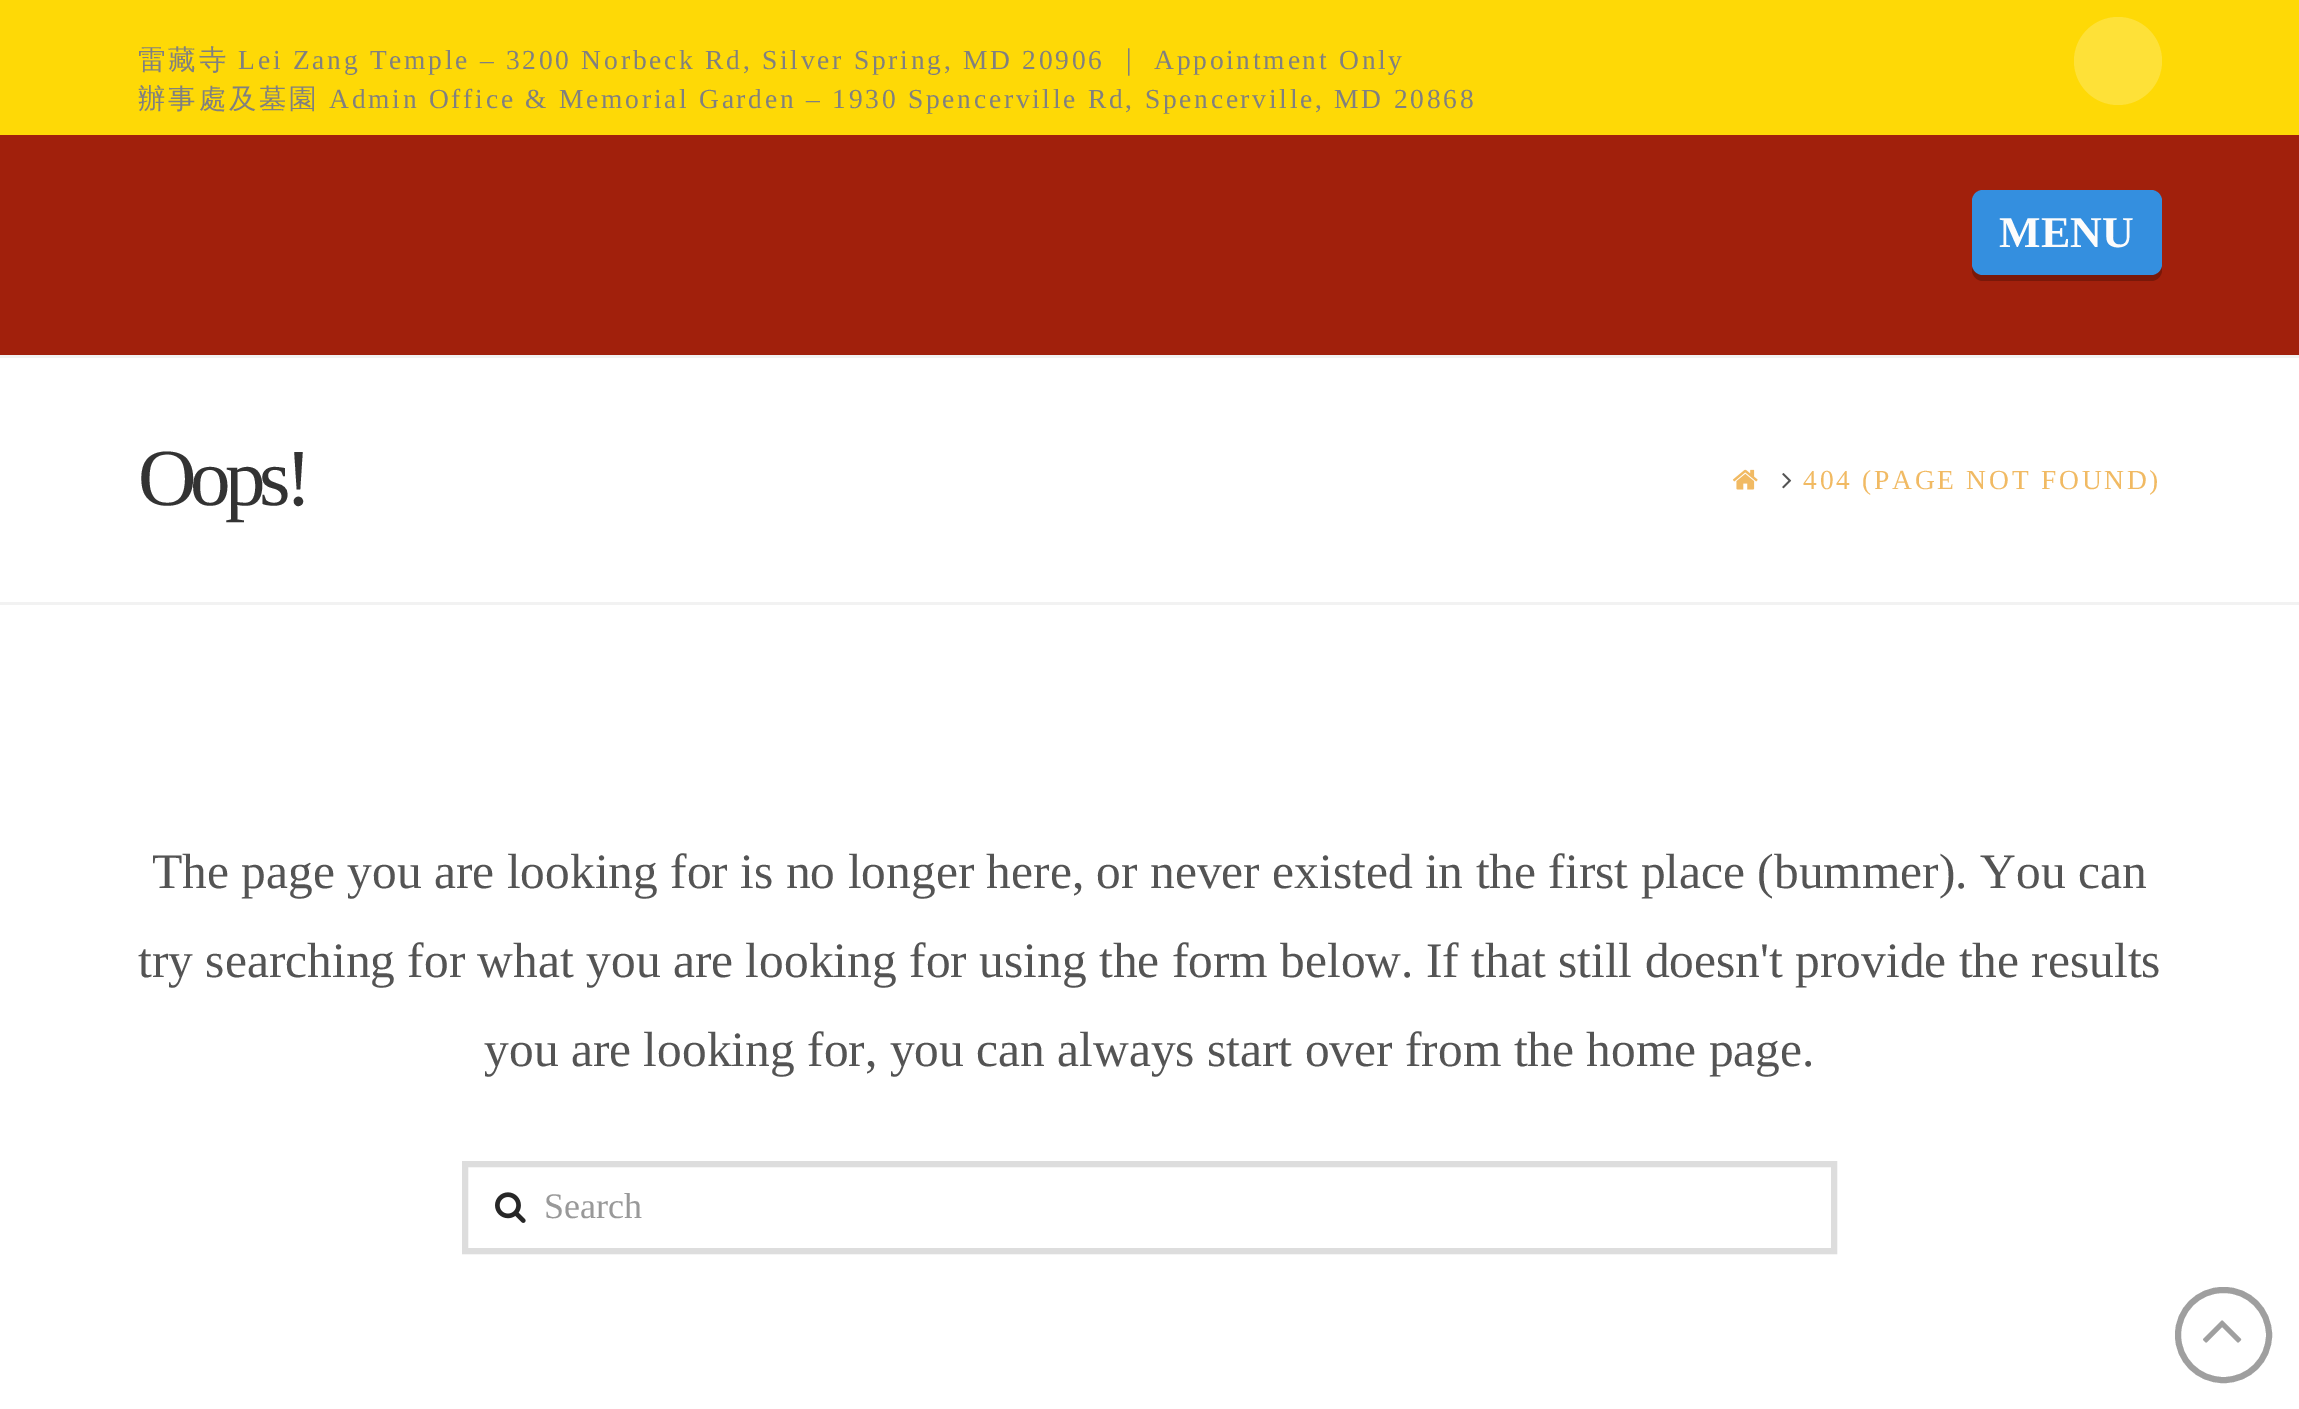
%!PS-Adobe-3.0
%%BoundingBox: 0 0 2299 1409
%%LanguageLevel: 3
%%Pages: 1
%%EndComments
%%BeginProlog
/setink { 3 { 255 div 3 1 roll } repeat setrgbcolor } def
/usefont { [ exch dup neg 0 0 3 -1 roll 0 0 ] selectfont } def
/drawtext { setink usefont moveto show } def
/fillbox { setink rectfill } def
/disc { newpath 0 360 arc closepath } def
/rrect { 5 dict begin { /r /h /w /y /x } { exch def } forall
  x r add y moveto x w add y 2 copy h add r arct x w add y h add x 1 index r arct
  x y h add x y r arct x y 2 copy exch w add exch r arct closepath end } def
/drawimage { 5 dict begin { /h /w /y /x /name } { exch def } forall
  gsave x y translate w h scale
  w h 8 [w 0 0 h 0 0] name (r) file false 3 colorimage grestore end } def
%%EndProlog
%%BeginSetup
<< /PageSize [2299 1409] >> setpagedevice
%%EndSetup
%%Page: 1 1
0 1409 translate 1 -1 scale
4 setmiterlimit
0 0 2299 1409 255 255 255 fillbox
0 0 2299 135 254 217 6 fillbox
/WenQuanYiZenHei-Medium 27.5 usefont
128 128 128 setink
138 69 moveto 2.75 0 (雷藏寺) ashow
/LiberationSerif-Regular 27.5 usefont
238 69 moveto 2.75 0 (Lei Zang Temple – 3200 Norbeck Rd, Silver Spring, MD 20906) ashow
/WenQuanYiZenHei-Medium 27.5 usefont
1115 69 moveto 2.75 0 (｜) ashow
/LiberationSerif-Regular 27.5 usefont
1154 69 moveto 2.75 0 (Appointment Only) ashow
/WenQuanYiZenHei-Medium 27.5 usefont
138 108 moveto 2.75 0 (辦事處及墓園) ashow
/LiberationSerif-Regular 27.5 usefont
329 108 moveto 2.75 0 (Admin Office & Memorial Garden – 1930 Spencerville Rd, Spencerville, MD 20868) ashow
254 225 56 setink
2118 61 44 disc fill
0 135 2299 220 161 32 12 fillbox
121 24 9 setink
1972 266 moveto 1972 270 lineto 1972 276 1977 281 1983 281 curveto 2151 281 lineto 2157 281 2162 276 2162 270 curveto 2162 206 lineto 2162 203 lineto 2162 264 lineto 2162 270 2157 275 2150 275 curveto 1983 275 lineto 1977 275 1973 271 1972 266 curveto closepath fill
52 143 223 setink
1972 190 190 85 11 rrect fill
(MENU) 1999 247 /LiberationSerif-Bold 44 252 252 252 drawtext
0 355 2299 3 242 242 242 fillbox
0 602 2299 3 242 242 242 fillbox
/LiberationSerif-Regular 81 usefont
51 51 51 setink
138 505 moveto -6 0 (Oops!) ashow
(assets/img1.rgb) 1732 469 26 21 drawimage
(assets/img2.rgb) 1782 473 10 16 drawimage
/LiberationSerif-Regular 27.5 usefont
241 186 99 setink
1803 489 moveto 2.75 0 (404 \(PAGE NOT FOUND\)) ashow
(The page you are looking for is no longer here, or never existed in the first place \(bummer\). You can) 152 888 /LiberationSerif-Regular 49.5 84 84 84 drawtext
(try searching for what you are looking for using the form below. If that still doesn't provide the results) 138 977 /LiberationSerif-Regular 49.5 84 84 84 drawtext
(you are looking for, you can always start over from the home page.) 484 1066 /LiberationSerif-Regular 49.5 84 84 84 drawtext
221 221 221 setink
6 setlinewidth
465 1164 1369 87 rectstroke
(assets/img3.rgb) 495 1192 31 31 drawimage
(Search) 544 1218 /LiberationSerif-Regular 36 153 153 153 drawtext
159 159 159 setink
2178 1290 91 90 45 rrect stroke
(assets/img4.rgb) 2203 1320 39 23 drawimage
showpage
%%EOF
